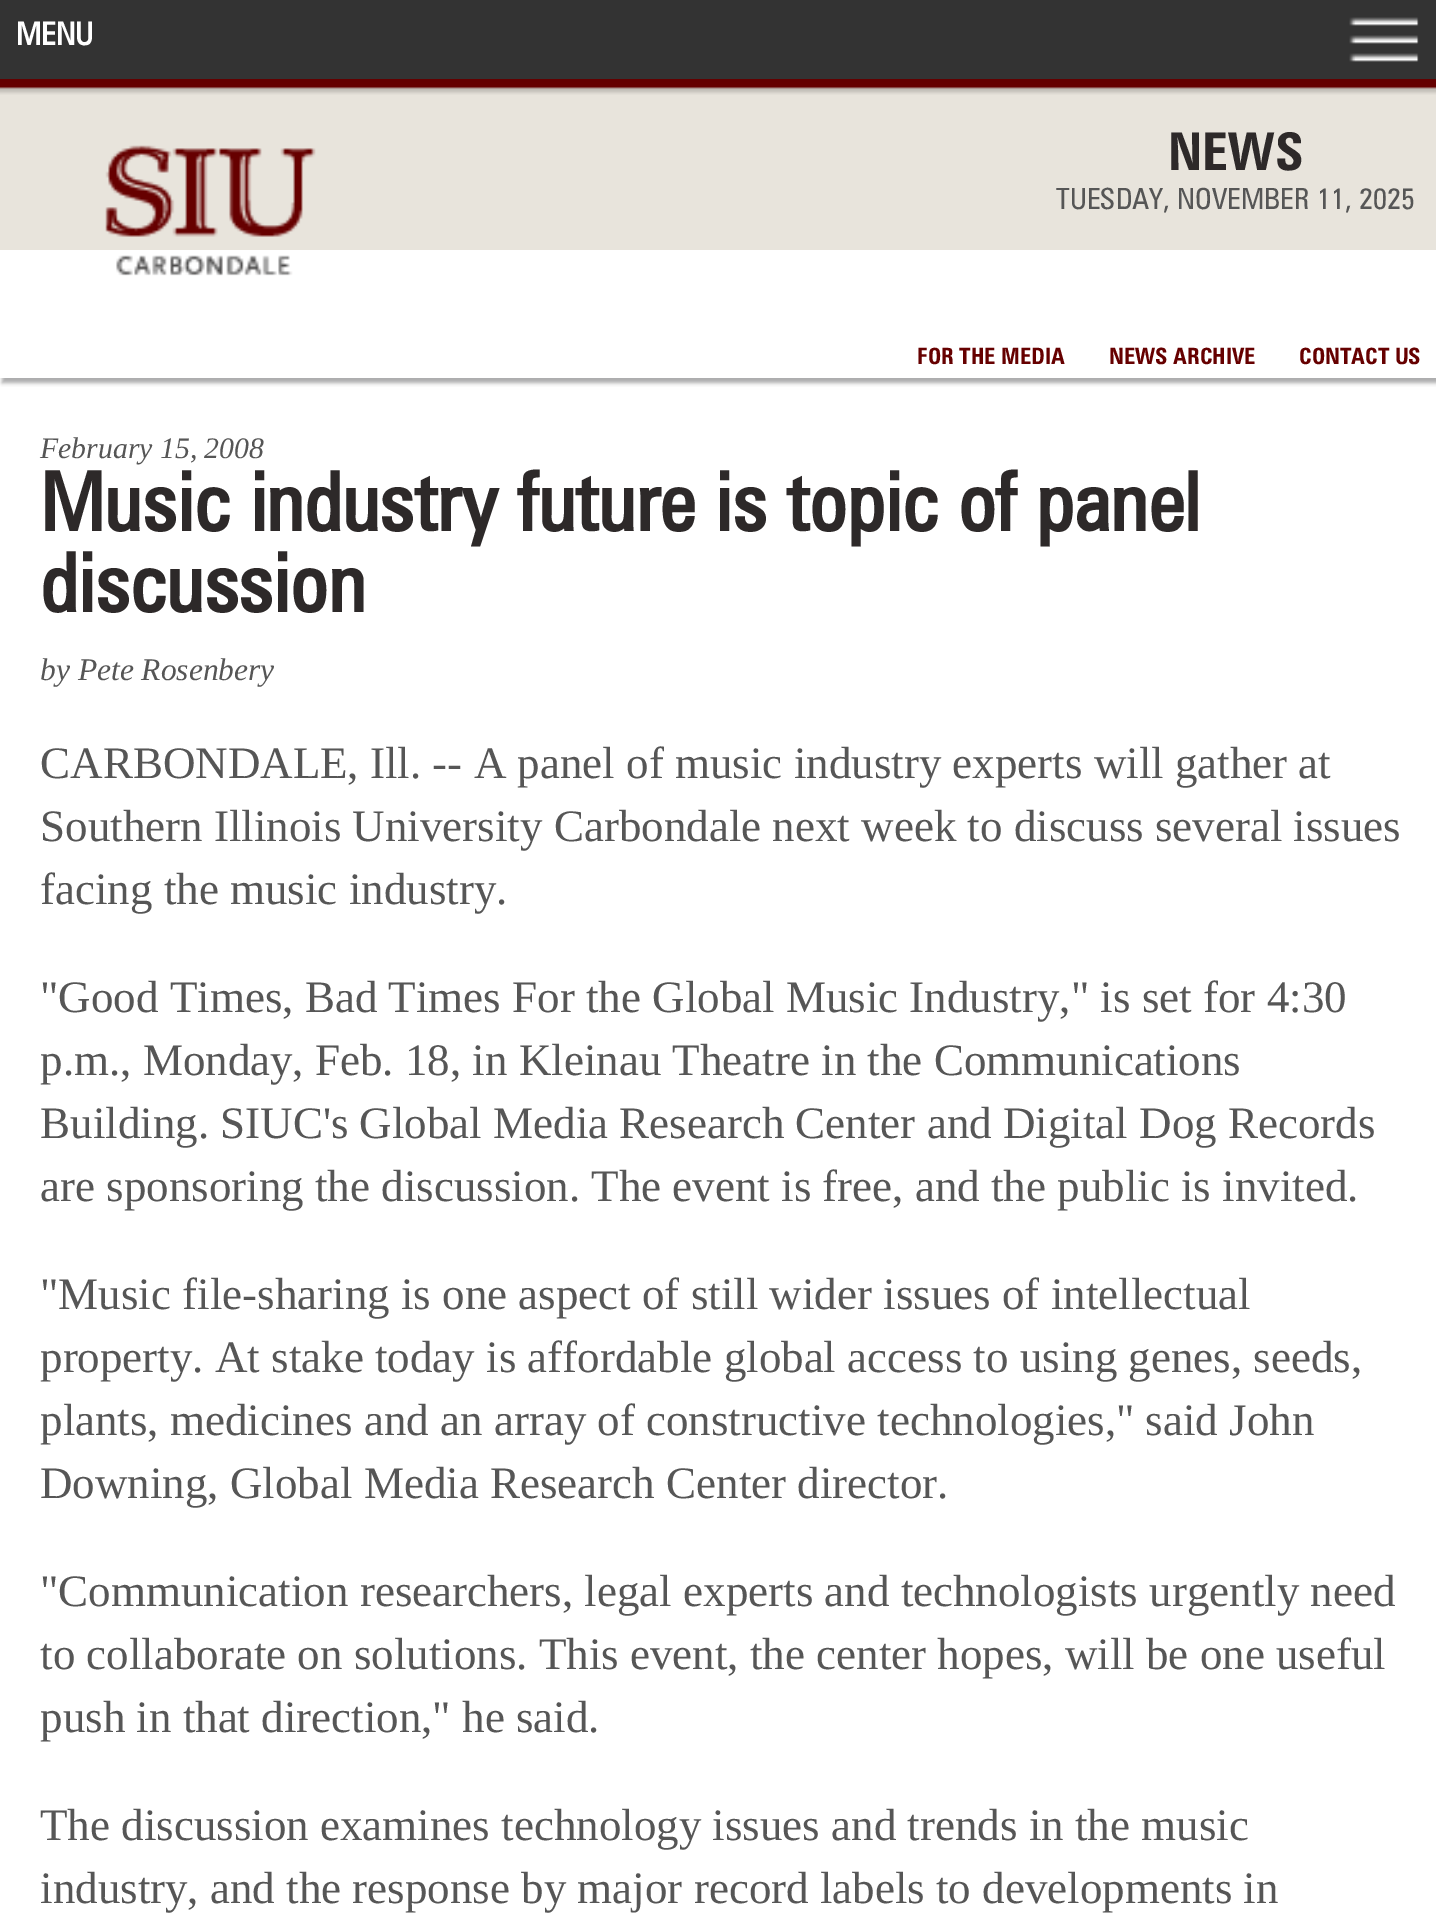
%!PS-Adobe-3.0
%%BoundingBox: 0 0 1436 1931
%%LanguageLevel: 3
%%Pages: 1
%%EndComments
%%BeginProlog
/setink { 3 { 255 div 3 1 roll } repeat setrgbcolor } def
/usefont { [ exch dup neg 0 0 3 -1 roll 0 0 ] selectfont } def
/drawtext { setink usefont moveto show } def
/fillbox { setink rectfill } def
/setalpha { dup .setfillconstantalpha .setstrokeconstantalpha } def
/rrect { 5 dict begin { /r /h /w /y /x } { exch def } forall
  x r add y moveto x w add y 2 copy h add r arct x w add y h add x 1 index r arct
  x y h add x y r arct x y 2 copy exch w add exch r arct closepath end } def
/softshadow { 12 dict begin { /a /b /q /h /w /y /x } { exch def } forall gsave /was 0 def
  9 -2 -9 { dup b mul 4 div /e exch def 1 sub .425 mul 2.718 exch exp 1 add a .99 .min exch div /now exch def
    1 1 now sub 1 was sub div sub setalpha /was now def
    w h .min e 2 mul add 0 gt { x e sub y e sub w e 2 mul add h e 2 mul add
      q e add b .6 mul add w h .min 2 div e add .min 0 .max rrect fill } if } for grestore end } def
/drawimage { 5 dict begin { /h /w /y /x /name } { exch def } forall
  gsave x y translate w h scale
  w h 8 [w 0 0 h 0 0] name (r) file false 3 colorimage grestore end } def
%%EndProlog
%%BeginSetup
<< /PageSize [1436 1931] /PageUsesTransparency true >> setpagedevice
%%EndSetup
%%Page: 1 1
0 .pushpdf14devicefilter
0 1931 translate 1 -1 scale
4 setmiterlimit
0 0 1436 1931 255 255 255 fillbox
0 0 1436 79 51 51 51 fillbox
(MENU) 16 45 /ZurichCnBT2-Bold 31.5 255 255 255 drawtext
(assets/img1.rgb) 1349 17 70 45 drawimage
0 87 1436 163 232 228 220 fillbox
(assets/img2.rgb) 0 79 1436 16 drawimage
(assets/img3.rgb) 105 145 211 131 drawimage
(NEWS) 1168 170 /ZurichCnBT-Bold 52 45 41 41 drawtext
(TUESDAY, NOVEMBER 11, 2025) 1056 209 /ZurichCnBT-Regular 29.25 86 86 86 drawtext
gsave
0 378 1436 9 rectclip
170 170 171 setink
2 333 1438 50 0 2 1 softshadow
grestore
(FOR THE MEDIA) 917 364 /ZurichCnBT-Bold 22.5 102 0 0 drawtext
(NEWS ARCHIVE) 1109 364 /ZurichCnBT-Bold 22.5 102 0 0 drawtext
(CONTACT US) 1299 364 /ZurichCnBT-Bold 22.5 102 0 0 drawtext
(February 15, 2008) 40 458 /LiberationSerif-Italic 29.75 86 86 86 drawtext
(Music industry future is topic of panel) 40 531 /ZurichCnBT2-Bold 81 45 41 41 drawtext
(discussion) 40 612 /ZurichCnBT2-Bold 81 45 41 41 drawtext
(by Pete Rosenbery) 40 680 /LiberationSerif-Italic 31.5 86 86 86 drawtext
(CARBONDALE, Ill. -- A panel of music industry experts will gather at) 40 778 /LiberationSerif-Regular 45 86 86 86 drawtext
(Southern Illinois University Carbondale next week to discuss several issues) 40 841 /LiberationSerif-Regular 45 86 86 86 drawtext
(facing the music industry.) 40 904 /LiberationSerif-Regular 45 86 86 86 drawtext
("Good Times, Bad Times For the Global Music Industry," is set for 4:30) 40 1012 /LiberationSerif-Regular 45 86 86 86 drawtext
(p.m., Monday, Feb. 18, in Kleinau Theatre in the Communications) 40 1075 /LiberationSerif-Regular 45 86 86 86 drawtext
(Building. SIUC's Global Media Research Center and Digital Dog Records) 40 1138 /LiberationSerif-Regular 45 86 86 86 drawtext
(are sponsoring the discussion. The event is free, and the public is invited.) 40 1201 /LiberationSerif-Regular 45 86 86 86 drawtext
("Music file-sharing is one aspect of still wider issues of intellectual) 40 1309 /LiberationSerif-Regular 45 86 86 86 drawtext
(property. At stake today is affordable global access to using genes, seeds,) 40 1372 /LiberationSerif-Regular 45 86 86 86 drawtext
(plants, medicines and an array of constructive technologies," said John) 40 1435 /LiberationSerif-Regular 45 86 86 86 drawtext
(Downing, Global Media Research Center director.) 40 1498 /LiberationSerif-Regular 45 86 86 86 drawtext
("Communication researchers, legal experts and technologists urgently need) 40 1606 /LiberationSerif-Regular 45 86 86 86 drawtext
(to collaborate on solutions. This event, the center hopes, will be one useful) 40 1669 /LiberationSerif-Regular 45 86 86 86 drawtext
(push in that direction," he said.) 40 1732 /LiberationSerif-Regular 45 86 86 86 drawtext
(The discussion examines technology issues and trends in the music) 40 1840 /LiberationSerif-Regular 45 86 86 86 drawtext
(industry, and the response by major record labels to developments in) 40 1903 /LiberationSerif-Regular 45 86 86 86 drawtext
.poppdf14devicefilter showpage
%%EOF
